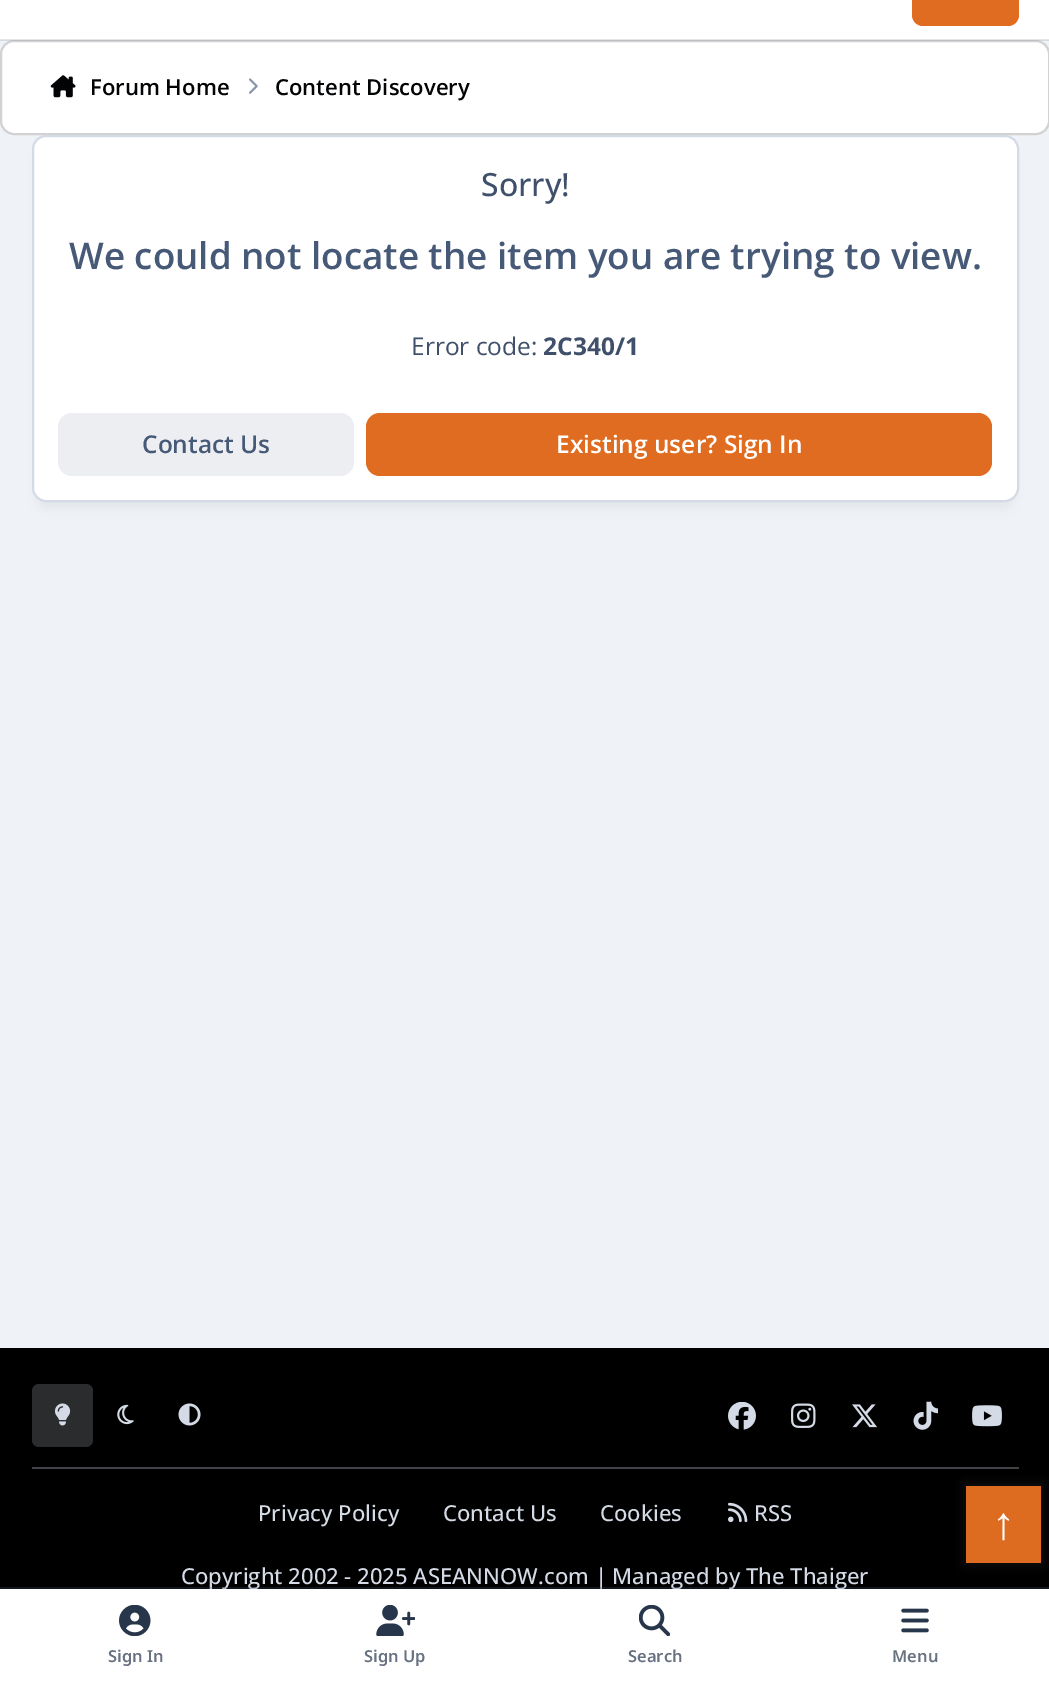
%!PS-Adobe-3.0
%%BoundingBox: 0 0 1049 1684
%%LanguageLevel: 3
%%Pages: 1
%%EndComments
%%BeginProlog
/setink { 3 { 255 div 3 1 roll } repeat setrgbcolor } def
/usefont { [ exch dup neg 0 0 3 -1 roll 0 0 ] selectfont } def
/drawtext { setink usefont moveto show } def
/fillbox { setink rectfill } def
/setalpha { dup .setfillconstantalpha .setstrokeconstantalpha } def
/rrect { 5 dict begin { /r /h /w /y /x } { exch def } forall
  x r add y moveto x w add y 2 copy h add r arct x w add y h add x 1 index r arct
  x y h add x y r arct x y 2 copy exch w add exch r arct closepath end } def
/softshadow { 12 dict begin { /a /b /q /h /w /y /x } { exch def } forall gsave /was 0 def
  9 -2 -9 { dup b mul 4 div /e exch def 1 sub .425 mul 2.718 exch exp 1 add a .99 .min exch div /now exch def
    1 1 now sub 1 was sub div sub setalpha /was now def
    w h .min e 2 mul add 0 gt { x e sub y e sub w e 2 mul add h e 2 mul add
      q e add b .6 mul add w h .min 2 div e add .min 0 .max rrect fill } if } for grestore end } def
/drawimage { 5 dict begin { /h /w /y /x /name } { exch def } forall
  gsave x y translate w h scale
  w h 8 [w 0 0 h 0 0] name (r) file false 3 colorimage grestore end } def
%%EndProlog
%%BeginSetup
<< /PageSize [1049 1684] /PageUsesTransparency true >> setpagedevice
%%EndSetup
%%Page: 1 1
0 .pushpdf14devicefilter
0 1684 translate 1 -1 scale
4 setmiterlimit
0 0 1049 1684 239 242 247 fillbox
0 0 1049 40 255 255 255 fillbox
1 41 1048 93 13 rrect gsave fill grestore
210 210 210 setink
2 setlinewidth
stroke
0.15 setalpha
0 39 1049 2 64 80 107 fillbox
1 setalpha
223 108 32 setink
912 -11 107 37 11 rrect fill
(assets/img1.rgb) 50 75 26 23 drawimage
(Forum Home) 90 95 /OpenSans-SemiBold 22.05 2 3 5 drawtext
(assets/img2.rgb) 249 78 9 16 drawimage
(Content Discovery) 275 95 /OpenSans-SemiBold 22.05 2 3 5 drawtext
1 3 10 setink
37 151 976 357 9 6 0.05 softshadow
255 255 255 setink
33 136 985 365 13 rrect gsave fill grestore
213 219 230 setink
stroke
(Sorry!) 481 196 /OpenSans-Medium 32 64 80 107 drawtext
(We could not locate the item you are trying to view.) 69 269 /OpenSans-SemiBold 36.75 70 89 119 drawtext
(Error code:) 411 355 /OpenSans-Regular 24.5 64 80 107 drawtext
(2C340/1) 543 355 /OpenSans-Bold 24.5 64 80 107 drawtext
237 238 241 setink
58 413 296 63 14 rrect fill
(Contact Us) 142 453 /OpenSans-SemiBold 24.5 70 89 119 drawtext
223 108 32 setink
366 413 626 63 14 rrect fill
(Existing user? Sign In) 556 453 /OpenSans-SemiBold 24.5 255 255 255 drawtext
0 1348 1049 241 0 0 0 fillbox
43 44 46 setink
32 1384 61 63 7 rrect fill
(assets/img3.rgb) 54 1403 17 23 drawimage
(assets/img4.rgb) 117 1404 17 21 drawimage
(assets/img5.rgb) 178 1403 23 23 drawimage
(assets/img6.rgb) 728 1402 28 28 drawimage
(assets/img7.rgb) 791 1403 25 25 drawimage
(assets/img8.rgb) 852 1404 25 24 drawimage
(assets/img9.rgb) 913 1401 25 29 drawimage
(assets/img10.rgb) 972 1405 30 22 drawimage
32 1467 987 2 64 66 69 fillbox
(Privacy Policy) 258 1521 /OpenSans-Medium 22.05 213 219 230 drawtext
(Contact Us) 443 1521 /OpenSans-Medium 22.05 213 219 230 drawtext
(Cookies) 600 1521 /OpenSans-Medium 22.05 213 219 230 drawtext
(assets/img11.rgb) 728 1502 20 21 drawimage
(RSS) 754 1521 /OpenSans-Medium 22.05 213 219 230 drawtext
(Copyright 2002 - 2025 ASEANNOW.com | Managed by The Thaiger) 181 1584 /OpenSans-Medium 22.05 213 219 230 drawtext
33 33 33 setink
964 1484 79 81 0 4.5 0.5 softshadow
966 1486 75 77 221 107 32 fillbox
(↑) 992 1539 /LiberationSerif-Bold 46 255 255 255 drawtext
0.25 setalpha
0 1587 1049 2 70 89 119 fillbox
1 setalpha
0 1589 1049 95 255 255 255 fillbox
(assets/img12.rgb) 119 1605 32 31 drawimage
(Sign In) 108 1662 /NotoSans-SemiBold 16.5 105 114 130 drawtext
(assets/img13.rgb) 376 1605 39 31 drawimage
(Sign Up) 364 1662 /NotoSans-SemiBold 16.5 105 114 130 drawtext
(assets/img14.rgb) 639 1605 31 31 drawimage
(Search) 628 1662 /NotoSans-SemiBold 16.5 105 114 130 drawtext
(assets/img15.rgb) 901 1608 28 25 drawimage
(Menu) 892 1662 /NotoSans-SemiBold 16.5 105 114 130 drawtext
.poppdf14devicefilter showpage
%%EOF
